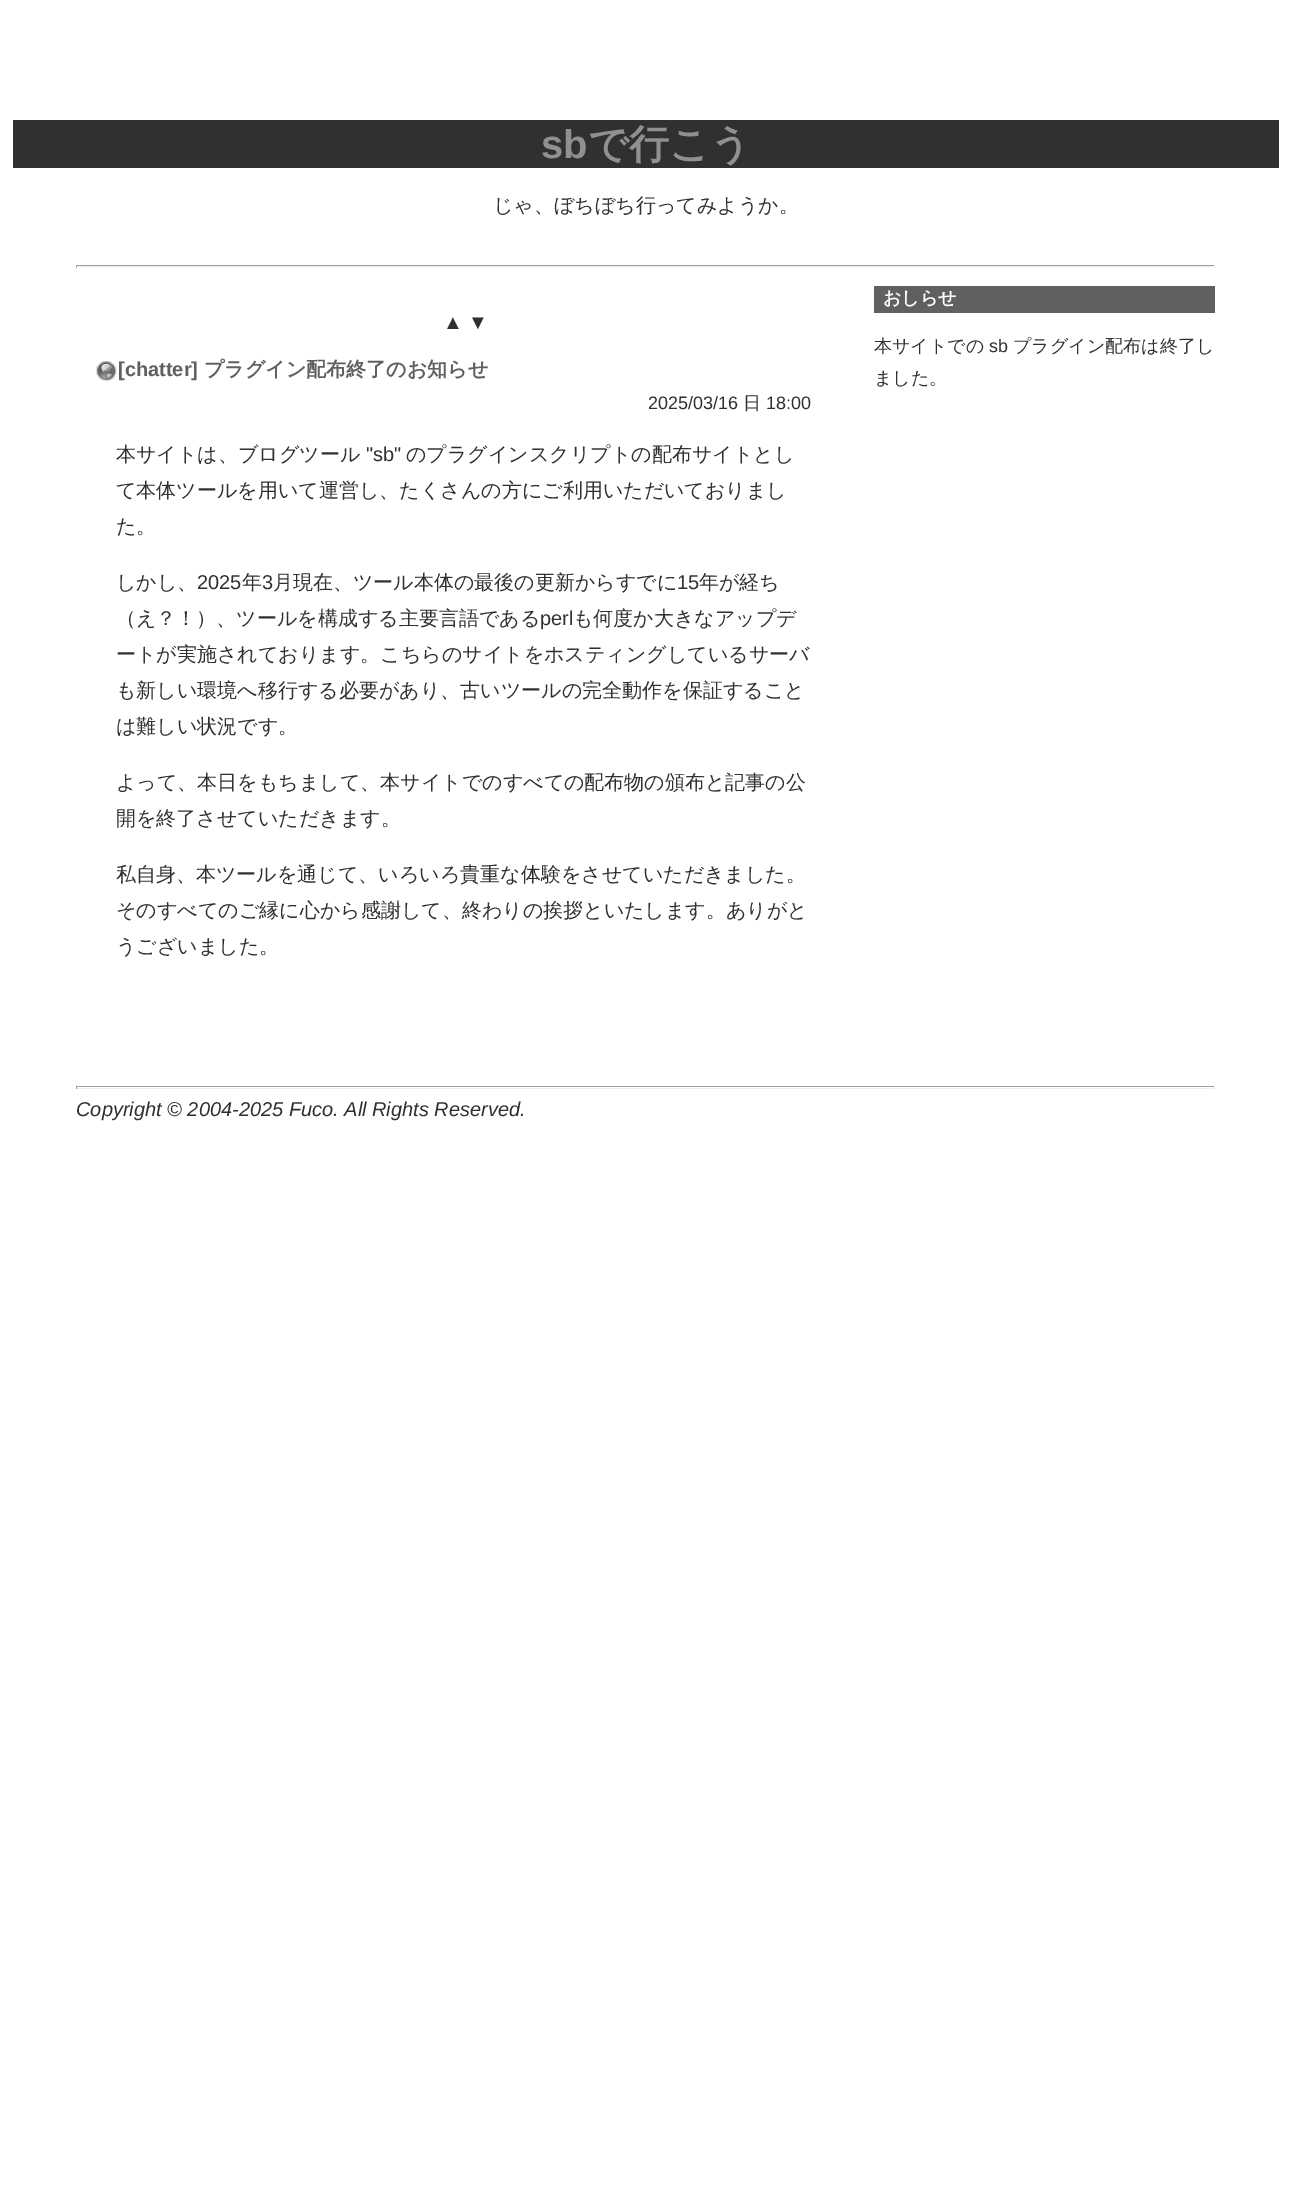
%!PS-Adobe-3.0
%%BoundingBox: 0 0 1291 2207
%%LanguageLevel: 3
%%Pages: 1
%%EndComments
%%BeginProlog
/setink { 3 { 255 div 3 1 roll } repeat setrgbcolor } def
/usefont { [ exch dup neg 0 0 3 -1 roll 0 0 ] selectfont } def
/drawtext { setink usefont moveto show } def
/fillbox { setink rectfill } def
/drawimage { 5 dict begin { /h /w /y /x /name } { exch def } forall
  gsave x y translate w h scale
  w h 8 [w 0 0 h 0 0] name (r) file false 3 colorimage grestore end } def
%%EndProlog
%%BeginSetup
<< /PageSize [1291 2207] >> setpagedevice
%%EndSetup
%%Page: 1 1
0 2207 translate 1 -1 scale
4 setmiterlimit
0 0 1291 2207 255 255 255 fillbox
13 120 1266 48 48 48 48 fillbox
(sb) 541 158 /LiberationSans-Bold 40 144 144 144 drawtext
(で行こう) 588 158 /WenQuanYiZenHei-Bold 40 144 144 144 drawtext
(じゃ、ぼちぼち行ってみようか。) 493 212 /WenQuanYiZenHei-Medium 20 48 48 48 drawtext
76 265 1139 1 159 159 159 fillbox
1214 265 1 3 238 238 238 fillbox
76 266 1139 1 238 238 238 fillbox
76 265 1 3 159 159 159 fillbox
(▲ ▼) 443 329 /LiberationSans-Regular 20 48 48 48 drawtext
(assets/img1.rgb) 96 361 21 21 drawimage
([chatter]) 118 376 /LiberationSans-Bold 20 96 96 96 drawtext
(プラグイン配布終了のお知らせ) 204 376 /WenQuanYiZenHei-Bold 20 96 96 96 drawtext
(2025/03/16) 648 409 /LiberationSans-Regular 18 48 48 48 drawtext
(日) 743 409 /WenQuanYiZenHei-Medium 18 48 48 48 drawtext
(18:00) 766 409 /LiberationSans-Regular 18 48 48 48 drawtext
(本サイトは、ブログツール) 116 461 /WenQuanYiZenHei-Medium 20 48 48 48 drawtext
("sb") 366 461 /LiberationSans-Regular 20 48 48 48 drawtext
(のプラグインスクリプトの配布サイトとし) 406 461 /WenQuanYiZenHei-Medium 20 48 48 48 drawtext
(て本体ツールを用いて運営し、たくさんの方にご利用いただいておりまし) 116 497 /WenQuanYiZenHei-Medium 20 48 48 48 drawtext
(た。) 116 533 /WenQuanYiZenHei-Medium 20 48 48 48 drawtext
(しかし、) 116 589 /WenQuanYiZenHei-Medium 20 48 48 48 drawtext
(2025) 197 589 /LiberationSans-Regular 20 48 48 48 drawtext
(年) 242 589 /WenQuanYiZenHei-Medium 20 48 48 48 drawtext
(3) 262 589 /LiberationSans-Regular 20 48 48 48 drawtext
(月現在、ツール本体の最後の更新からすでに) 273 589 /WenQuanYiZenHei-Medium 20 48 48 48 drawtext
(15) 677 589 /LiberationSans-Regular 20 48 48 48 drawtext
(年が経ち) 699 589 /WenQuanYiZenHei-Medium 20 48 48 48 drawtext
(（え？！）、ツールを構成する主要言語である) 116 625 /WenQuanYiZenHei-Medium 20 48 48 48 drawtext
(perl) 540 625 /LiberationSans-Regular 20 48 48 48 drawtext
(も何度か大きなアップデ) 573 625 /WenQuanYiZenHei-Medium 20 48 48 48 drawtext
(ートが実施されております。こちらのサイトをホスティングしているサーバ) 116 661 /WenQuanYiZenHei-Medium 20 48 48 48 drawtext
(も新しい環境へ移行する必要があり、古いツールの完全動作を保証すること) 116 697 /WenQuanYiZenHei-Medium 20 48 48 48 drawtext
(は難しい状況です。) 116 733 /WenQuanYiZenHei-Medium 20 48 48 48 drawtext
(よって、本日をもちまして、本サイトでのすべての配布物の頒布と記事の公) 116 789 /WenQuanYiZenHei-Medium 20 48 48 48 drawtext
(開を終了させていただきます。) 116 825 /WenQuanYiZenHei-Medium 20 48 48 48 drawtext
(私自身、本ツールを通じて、いろいろ貴重な体験をさせていただきました。) 116 881 /WenQuanYiZenHei-Medium 20 48 48 48 drawtext
(そのすべてのご縁に心から感謝して、終わりの挨拶といたします。ありがと) 116 917 /WenQuanYiZenHei-Medium 20 48 48 48 drawtext
(うございました。) 116 953 /WenQuanYiZenHei-Medium 20 48 48 48 drawtext
874 286 341 27 96 96 96 fillbox
(おしらせ) 883 304 /WenQuanYiZenHei-Bold 18 255 250 250 drawtext
(本サイトでの) 874 352 /WenQuanYiZenHei-Medium 18 48 48 48 drawtext
(sb) 989 352 /LiberationSans-Regular 18 48 48 48 drawtext
(プラグイン配布は終了し) 1013 352 /WenQuanYiZenHei-Medium 18 48 48 48 drawtext
(ました。) 874 384 /WenQuanYiZenHei-Medium 18 48 48 48 drawtext
76 1086 1139 1 159 159 159 fillbox
1214 1086 1 3 238 238 238 fillbox
76 1088 1139 1 238 238 238 fillbox
76 1086 1 3 159 159 159 fillbox
(Copyright © 2004-2025 Fuco. All Rights Reserved.) 76 1116 /LiberationSans-Italic 20 48 48 48 drawtext
showpage
%%EOF
